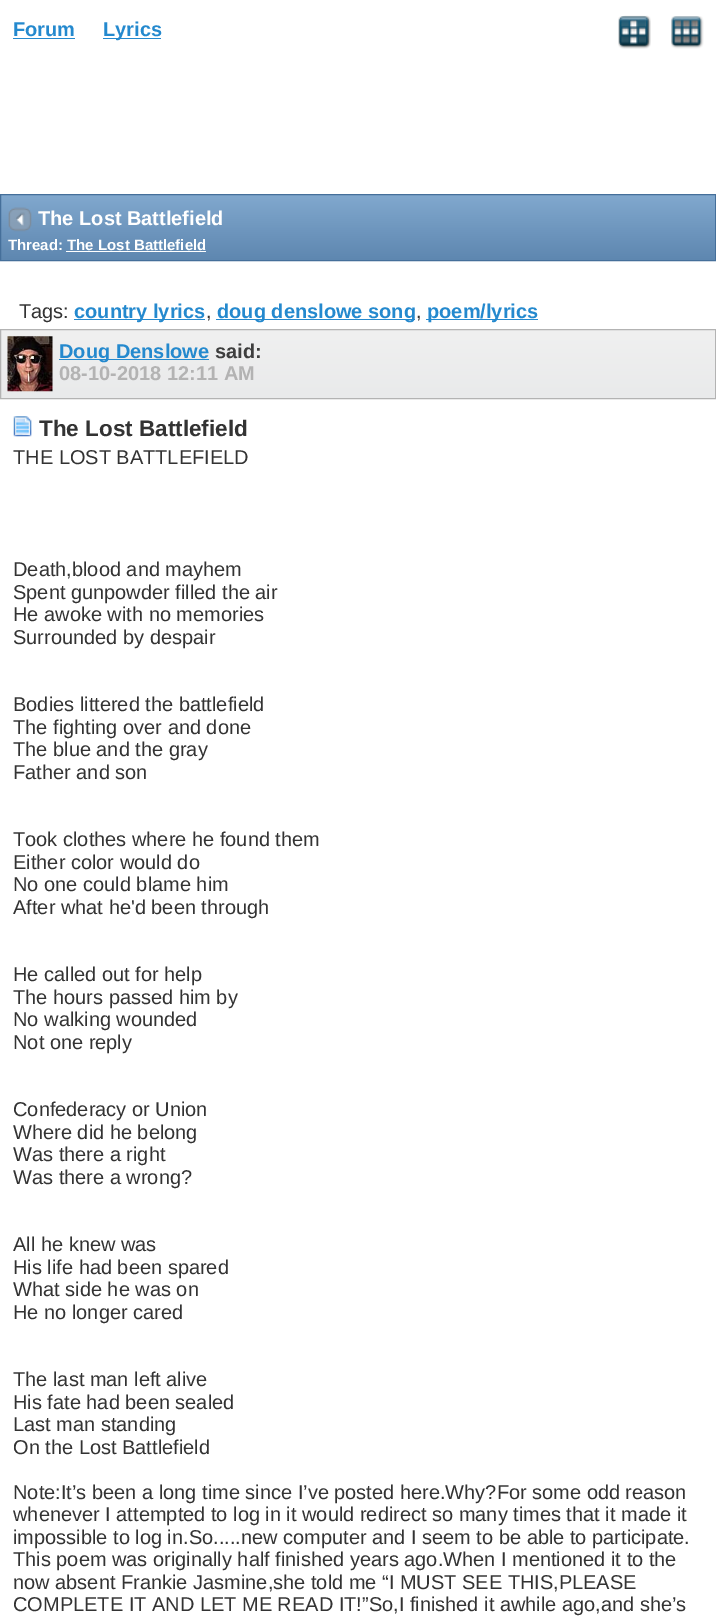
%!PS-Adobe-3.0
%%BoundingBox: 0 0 716 1622
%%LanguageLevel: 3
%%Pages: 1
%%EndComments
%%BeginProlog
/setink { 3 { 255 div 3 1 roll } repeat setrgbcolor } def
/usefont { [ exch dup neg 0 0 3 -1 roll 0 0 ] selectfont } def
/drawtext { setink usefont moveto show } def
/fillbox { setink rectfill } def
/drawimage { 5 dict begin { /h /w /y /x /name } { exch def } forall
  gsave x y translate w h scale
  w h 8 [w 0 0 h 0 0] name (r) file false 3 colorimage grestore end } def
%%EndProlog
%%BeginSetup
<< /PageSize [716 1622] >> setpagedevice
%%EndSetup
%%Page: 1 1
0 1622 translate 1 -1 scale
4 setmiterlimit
0 0 716 1622 255 255 255 fillbox
(Forum) 13 36 /LiberationSans-Bold 20 36 137 206 drawtext
13 38 62 1 36 137 206 fillbox
103 38 58 1 36 137 206 fillbox
(Lyrics) 103 36 /LiberationSans-Bold 20 36 137 206 drawtext
(assets/img1.rgb) 618 15 33 34 drawimage
(assets/img2.rgb) 671 16 33 33 drawimage
gsave 1 195 moveto 715 195 lineto 715 260 lineto 1 260 lineto closepath clip newpath
<< /ShadingType 2 /ColorSpace /DeviceRGB /Coords [358 195 358 260] /Extend [true true] /Function << /FunctionType 2 /Domain [0 1] /C0 [0.506 0.659 0.808] /C1 [0.369 0.529 0.69] /N 1 >> >> shfill grestore
69 111 154 setink
0.5 194.5 715 66 rectstroke
(assets/img3.rgb) 8 207 24 25 drawimage
(The Lost Battlefield) 38 225 /LiberationSans-Bold 20 255 255 255 drawtext
(Thread: The Lost Battlefield) 8 250 /LiberationSans-Bold 15 255 255 255 drawtext
66 251 140 1 255 255 255 fillbox
(Tags:) 19 318 /LiberationSans-Regular 20 51 51 51 drawtext
74 319 131 1 36 137 206 fillbox
(country lyrics) 74 318 /LiberationSans-Bold 20 36 137 206 drawtext
(,) 206 318 /LiberationSans-Regular 20 51 51 51 drawtext
216 319 199 1 36 137 206 fillbox
(doug denslowe song) 217 318 /LiberationSans-Bold 20 36 137 206 drawtext
(,) 416 318 /LiberationSans-Regular 20 51 51 51 drawtext
426 319 112 1 36 137 206 fillbox
(poem/lyrics) 427 318 /LiberationSans-Bold 20 36 137 206 drawtext
gsave 1 330 moveto 715 330 lineto 715 398 lineto 1 398 lineto closepath clip newpath
<< /ShadingType 2 /ColorSpace /DeviceRGB /Coords [358 330 358 398] /Extend [true true] /Function << /FunctionType 2 /Domain [0 1] /C0 [0.941 0.941 0.941] /C1 [0.914 0.918 0.922] /N 1 >> >> shfill grestore
179 179 179 setink
0.5 329.5 715 69 rectstroke
(assets/img4.rgb) 7 336 46 56 drawimage
59 359 150 1 36 137 206 fillbox
(Doug Denslowe) 59 358 /LiberationSans-Bold 20 36 137 206 drawtext
(said:) 215 358 /LiberationSans-Bold 20 62 62 62 drawtext
(08-10-2018 12:11 AM) 59 380 /LiberationSans-Bold 20 179 179 179 drawtext
(assets/img5.rgb) 13 416 19 21 drawimage
(The Lost Battlefield) 39 436 /LiberationSans-Bold 22.5 51 51 51 drawtext
(THE LOST BATTLEFIELD) 13 464 /LiberationSans-Regular 20 51 51 51 drawtext
(Death,blood and mayhem) 13 576 /LiberationSans-Regular 20 51 51 51 drawtext
(Spent gunpowder filled the air) 13 599 /LiberationSans-Regular 20 51 51 51 drawtext
(He awoke with no memories) 13 621 /LiberationSans-Regular 20 51 51 51 drawtext
(Surrounded by despair) 13 644 /LiberationSans-Regular 20 51 51 51 drawtext
(Bodies littered the battlefield) 13 711 /LiberationSans-Regular 20 51 51 51 drawtext
(The fighting over and done) 13 734 /LiberationSans-Regular 20 51 51 51 drawtext
(The blue and the gray) 13 756 /LiberationSans-Regular 20 51 51 51 drawtext
(Father and son) 13 779 /LiberationSans-Regular 20 51 51 51 drawtext
(Took clothes where he found them) 13 846 /LiberationSans-Regular 20 51 51 51 drawtext
(Either color would do) 13 869 /LiberationSans-Regular 20 51 51 51 drawtext
(No one could blame him) 13 891 /LiberationSans-Regular 20 51 51 51 drawtext
(After what he'd been through) 13 914 /LiberationSans-Regular 20 51 51 51 drawtext
(He called out for help) 13 981 /LiberationSans-Regular 20 51 51 51 drawtext
(The hours passed him by) 13 1004 /LiberationSans-Regular 20 51 51 51 drawtext
(No walking wounded) 13 1026 /LiberationSans-Regular 20 51 51 51 drawtext
(Not one reply) 13 1049 /LiberationSans-Regular 20 51 51 51 drawtext
(Confederacy or Union) 13 1116 /LiberationSans-Regular 20 51 51 51 drawtext
(Where did he belong) 13 1139 /LiberationSans-Regular 20 51 51 51 drawtext
(Was there a right) 13 1161 /LiberationSans-Regular 20 51 51 51 drawtext
(Was there a wrong?) 13 1184 /LiberationSans-Regular 20 51 51 51 drawtext
(All he knew was) 13 1251 /LiberationSans-Regular 20 51 51 51 drawtext
(His life had been spared) 13 1274 /LiberationSans-Regular 20 51 51 51 drawtext
(What side he was on) 13 1296 /LiberationSans-Regular 20 51 51 51 drawtext
(He no longer cared) 13 1319 /LiberationSans-Regular 20 51 51 51 drawtext
(The last man left alive) 13 1386 /LiberationSans-Regular 20 51 51 51 drawtext
(His fate had been sealed) 13 1409 /LiberationSans-Regular 20 51 51 51 drawtext
(Last man standing) 13 1431 /LiberationSans-Regular 20 51 51 51 drawtext
(On the Lost Battlefield) 13 1454 /LiberationSans-Regular 20 51 51 51 drawtext
(Note:It’s been a long time since I’ve posted here.Why?For some odd reason) 13 1499 /LiberationSans-Regular 20 51 51 51 drawtext
(whenever I attempted to log in it would redirect so many times that it made it) 13 1521 /LiberationSans-Regular 20 51 51 51 drawtext
(impossible to log in.So.....new computer and I seem to be able to participate.) 13 1544 /LiberationSans-Regular 20 51 51 51 drawtext
(This poem was originally half finished years ago.When I mentioned it to the) 13 1566 /LiberationSans-Regular 20 51 51 51 drawtext
(now absent Frankie Jasmine,she told me “I MUST SEE THIS,PLEASE) 13 1589 /LiberationSans-Regular 20 51 51 51 drawtext
(COMPLETE IT AND LET ME READ IT!”So,I finished it awhile ago,and she’s) 13 1611 /LiberationSans-Regular 20 51 51 51 drawtext
showpage
%%EOF
